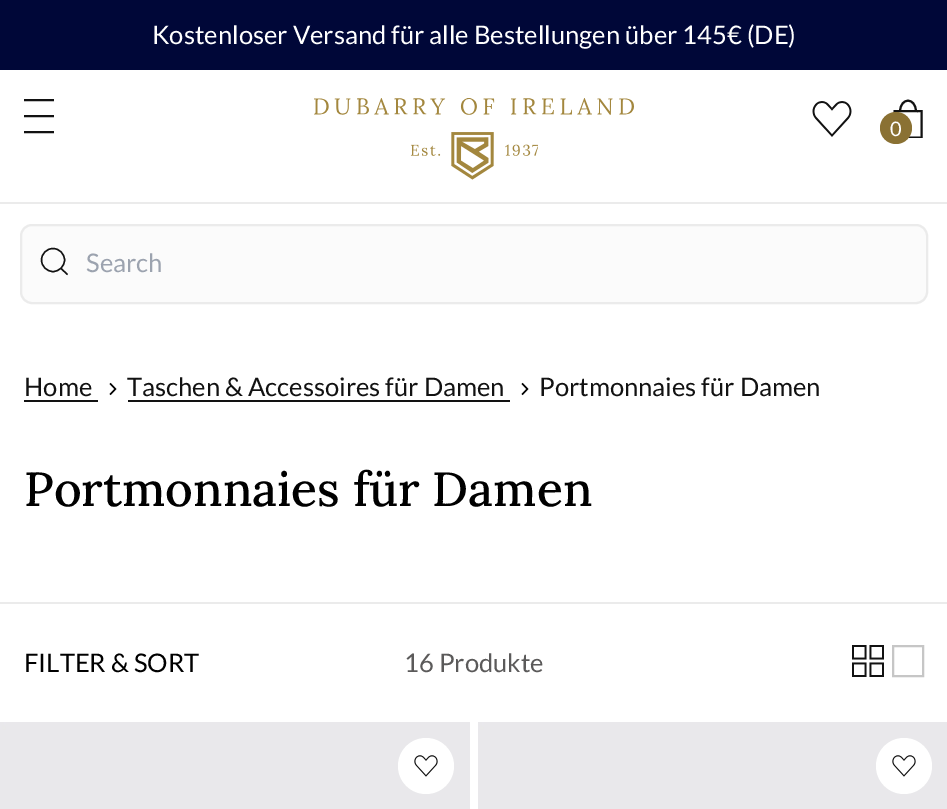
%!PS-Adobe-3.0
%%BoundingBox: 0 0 947 809
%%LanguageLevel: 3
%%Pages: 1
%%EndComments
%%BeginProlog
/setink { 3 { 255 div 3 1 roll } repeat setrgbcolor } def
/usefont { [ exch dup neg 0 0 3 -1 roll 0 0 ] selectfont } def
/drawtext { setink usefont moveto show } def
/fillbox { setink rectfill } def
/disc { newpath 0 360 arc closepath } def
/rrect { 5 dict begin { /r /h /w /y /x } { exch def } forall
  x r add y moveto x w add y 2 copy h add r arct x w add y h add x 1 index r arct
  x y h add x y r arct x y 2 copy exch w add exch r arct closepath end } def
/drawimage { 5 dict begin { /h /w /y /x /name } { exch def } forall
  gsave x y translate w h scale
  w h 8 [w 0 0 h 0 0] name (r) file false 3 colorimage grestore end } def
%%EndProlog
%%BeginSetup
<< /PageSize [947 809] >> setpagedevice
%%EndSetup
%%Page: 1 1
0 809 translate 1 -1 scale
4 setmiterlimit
0 0 947 809 255 255 255 fillbox
0 0 947 70 0 7 56 fillbox
(Kostenloser Versand für alle Bestellungen über 145€ \(DE\)) 152 44 /Lato-Regular 25.6 255 255 255 drawtext
0 202 947 2 235 235 235 fillbox
18 18 18 setink
2 setlinewidth
24 100 moveto 54 100 lineto 24 116 moveto 54 116 lineto 24 132 moveto 54 132 lineto stroke
(assets/img1.rgb) 314 98 320 17 drawimage
(assets/img2.rgb) 410 132 128 48 drawimage
(assets/img3.rgb) 812 101 40 36 drawimage
900 111.5 moveto 900.5 97 915.5 97 916 111.5 curveto closepath stroke
899 112 18 1 255 255 255 fillbox
gsave
892 98 32 40 rectclip
18 18 18 setink
894.5 111 moveto 921.5 111 lineto 921.5 137.5 lineto 894.5 137.5 lineto closepath stroke
grestore
138 113 51 setink
896 128 16 disc fill
(0) 890 136 /Lato-Regular 20 255 255 255 drawtext
251 251 251 setink
21 225 906 78 11 rrect gsave fill grestore
235 235 235 setink
stroke
18 18 18 setink
1.4 setlinewidth
53 260 11.5 disc stroke
61 268.5 moveto 67.5 274.5 lineto stroke
(Search) 86 272 /Lato-Regular 25.6 156 163 175 drawtext
(Home) 24 396 /Lato-Regular 25.6 18 18 18 drawtext
24 400 74 2 18 18 18 fillbox
(assets/img4.rgb) 109 382 8 14 drawimage
(Taschen & Accessoires für Damen) 127 396 /Lato-Regular 25.6 18 18 18 drawtext
128 400 382 2 18 18 18 fillbox
(assets/img4.rgb) 521 382 8 14 drawimage
(Portmonnaies für Damen) 539 396 /Lato-Regular 25.6 18 18 18 drawtext
(Portmonnaies für Damen) 24 506 /Lora-Medium 48 0 0 0 drawtext
0 602 947 2 235 235 235 fillbox
(FILTER & SORT) 24 672 /Lato-Regular 25.6 0 0 0 drawtext
(16 Produkte) 404 672 /Lato-Regular 25.6 91 90 90 drawtext
(assets/img5.rgb) 852 645 32 32 drawimage
198 198 198 setink
2 setlinewidth
893 646 moveto 923 646 lineto 923 676 lineto 893 676 lineto closepath stroke
(assets/img6.rgb) 0 722 470 87 drawimage
255 255 255 setink
426 766 28 disc fill
(assets/img7.rgb) 414 755 24 22 drawimage
(assets/img8.rgb) 478 722 469 87 drawimage
904 766 28 disc fill
(assets/img7.rgb) 892 755 24 22 drawimage
showpage
%%EOF
